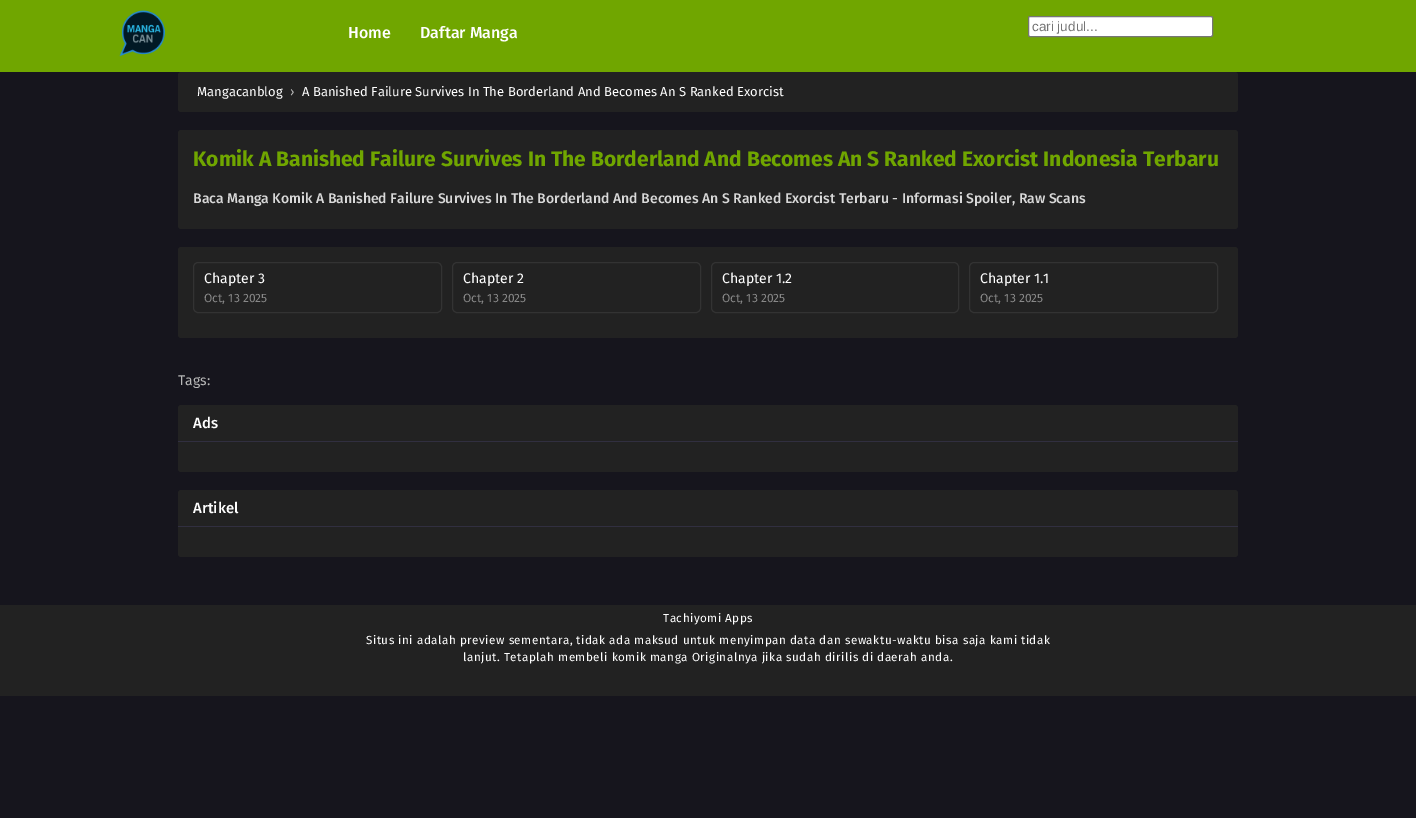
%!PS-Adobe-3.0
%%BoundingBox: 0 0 1416 818
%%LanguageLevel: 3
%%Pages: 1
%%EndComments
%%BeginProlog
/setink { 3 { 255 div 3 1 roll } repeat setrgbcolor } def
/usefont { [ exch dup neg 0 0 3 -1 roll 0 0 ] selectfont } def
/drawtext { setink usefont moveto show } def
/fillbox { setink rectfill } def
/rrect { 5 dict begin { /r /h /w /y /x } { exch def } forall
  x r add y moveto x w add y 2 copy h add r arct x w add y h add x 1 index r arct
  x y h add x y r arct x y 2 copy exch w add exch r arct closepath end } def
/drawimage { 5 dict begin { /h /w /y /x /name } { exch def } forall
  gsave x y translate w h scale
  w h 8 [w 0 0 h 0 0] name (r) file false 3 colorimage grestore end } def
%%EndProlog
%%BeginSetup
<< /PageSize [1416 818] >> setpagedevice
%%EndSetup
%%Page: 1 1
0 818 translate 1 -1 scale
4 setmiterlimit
0 0 1416 818 22 21 29 fillbox
0 0 1416 72 112 166 0 fillbox
(assets/img1.rgb) 119 10 46 47 drawimage
(Home) 348 38 /FiraSans-Medium 16 255 255 255 drawtext
(Daftar Manga) 420 38 /FiraSans-Medium 16 255 255 255 drawtext
1028.5 16.5 184 20 1.5 rrect gsave fill grestore
118 118 118 setink
stroke
(cari judul...) 1032 31 /LiberationSans-Regular 13.5 117 117 117 drawtext
34 34 34 setink
178 72 1060 40 3 rrect fill
(Mangacanblog) 197 96 /FiraSans-Regular 13 255 255 255 drawtext
(›) 290 96 /FiraSans-Regular 13 184 184 184 drawtext
(A Banished Failure Survives In The Borderland And Becomes An S Ranked Exorcist) 302 96 /FiraSans-Regular 13 255 255 255 drawtext
34 34 34 setink
178 130 1060 99 3 rrect fill
(Komik A Banished Failure Survives In The Borderland And Becomes An S Ranked Exorcist Indonesia Terbaru) 193 166 /FiraSans-Bold 21 112 166 0 drawtext
(Baca Manga Komik A Banished Failure Survives In The Borderland And Becomes An S Ranked Exorcist Terbaru - Informasi Spoiler, Raw Scans) 193 203 /FiraSans-Medium 14 217 217 217 drawtext
34 34 34 setink
178 247 1060 91 3 rrect fill
51 51 51 setink
193.5 262.5 248 50 4.5 rrect stroke
(Chapter 3) 204 283 /FiraSans-Regular 14 255 255 255 drawtext
(Oct, 13 2025) 204 302 /FiraSans-Regular 12 136 136 136 drawtext
51 51 51 setink
452.5 262.5 248 50 4.5 rrect stroke
(Chapter 2) 463 283 /FiraSans-Regular 14 255 255 255 drawtext
(Oct, 13 2025) 463 302 /FiraSans-Regular 12 136 136 136 drawtext
51 51 51 setink
711.5 262.5 247 50 4.5 rrect stroke
(Chapter 1.2) 722 283 /FiraSans-Regular 14 255 255 255 drawtext
(Oct, 13 2025) 722 302 /FiraSans-Regular 12 136 136 136 drawtext
51 51 51 setink
969.5 262.5 248 50 4.5 rrect stroke
(Chapter 1.1) 980 283 /FiraSans-Regular 14 255 255 255 drawtext
(Oct, 13 2025) 980 302 /FiraSans-Regular 12 136 136 136 drawtext
(Tags:) 178 385 /FiraSans-Regular 14 184 184 184 drawtext
34 34 34 setink
178 405 1060 67 3 rrect fill
178 441 1060 1 49 47 64 fillbox
(Ads) 193 428 /FiraSans-Medium 15 255 255 255 drawtext
34 34 34 setink
178 490 1060 67 3 rrect fill
178 526 1060 1 49 47 64 fillbox
(Artikel) 193 513 /FiraSans-Medium 15 255 255 255 drawtext
0 605 1416 91 34 34 34 fillbox
/FiraSans-Regular 11.7 usefont
255 255 255 setink
663 622 moveto 0.5 0 (Tachiyomi Apps) ashow
366 644 moveto 0.5 0 (Situs ini adalah preview sementara, tidak ada maksud untuk menyimpan data dan sewaktu-waktu bisa saja kami tidak) ashow
463 661 moveto 0.5 0 (lanjut. Tetaplah membeli komik manga Originalnya jika sudah dirilis di daerah anda.) ashow
showpage
%%EOF
